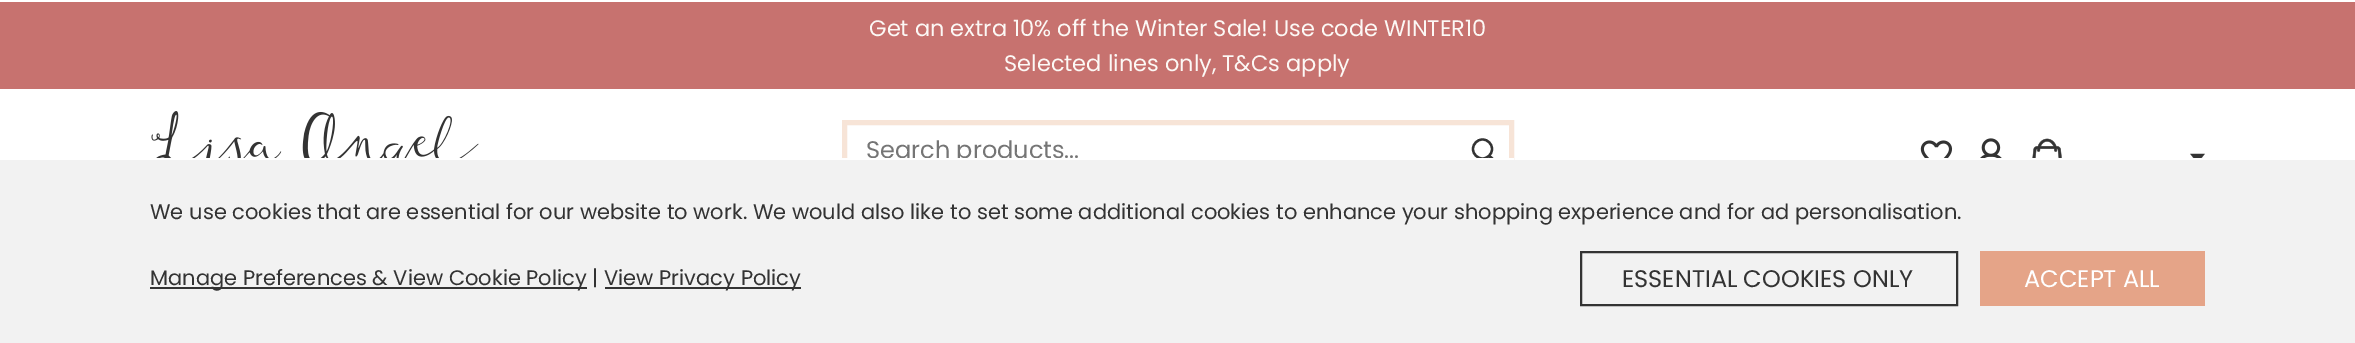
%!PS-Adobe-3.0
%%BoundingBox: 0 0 2355 343
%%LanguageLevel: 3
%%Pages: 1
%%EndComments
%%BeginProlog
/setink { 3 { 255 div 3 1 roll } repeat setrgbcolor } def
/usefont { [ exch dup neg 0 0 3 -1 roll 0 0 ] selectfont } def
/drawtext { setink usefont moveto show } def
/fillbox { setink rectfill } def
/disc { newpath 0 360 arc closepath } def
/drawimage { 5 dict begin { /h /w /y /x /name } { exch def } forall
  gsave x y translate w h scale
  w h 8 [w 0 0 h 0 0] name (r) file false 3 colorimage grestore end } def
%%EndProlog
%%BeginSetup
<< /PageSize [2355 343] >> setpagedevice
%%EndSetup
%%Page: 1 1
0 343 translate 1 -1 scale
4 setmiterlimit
0 0 2355 343 255 255 255 fillbox
0 2 2355 87 199 114 111 fillbox
(Get an extra 10% off the Winter Sale! Use code WINTER10) 869 36 /Poppins-Regular 22.5 252 248 245 drawtext
(Selected lines only, T&Cs apply) 1004 71 /Poppins-Regular 22.5 252 248 245 drawtext
(assets/img1.rgb) 151 111 328 47 drawimage
247 228 215 setink
5 setlinewidth
844.5 122.5 667 57 rectstroke
(Search products...) 866 158 /Poppins-Regular 24 117 117 117 drawtext
51 51 51 setink
2.3 setlinewidth
1482.5 149 9.5 disc stroke
3 setlinewidth
1489.5 156.5 moveto 1497.5 163.5 lineto stroke
(assets/img2.rgb) 1920 140 33 18 drawimage
(assets/img3.rgb) 1980 138 22 20 drawimage
(assets/img4.rgb) 2032 138 30 20 drawimage
(assets/img5.rgb) 2190 153 15 5 drawimage
0 160 2355 183 242 242 242 fillbox
842 158 672 2 255 255 255 fillbox
(We use cookies that are essential for our website to work. We would also like to set some additional cookies to enhance your shopping experience and for ad personalisation.) 150 219 /Poppins-Regular 21 51 51 51 drawtext
150 287 437 2 51 51 51 fillbox
(Manage Preferences & View Cookie Policy |) 150 285 /Poppins-Regular 21 51 51 51 drawtext
605 287 196 2 51 51 51 fillbox
(View Privacy Policy) 604 285 /Poppins-Regular 21 51 51 51 drawtext
2 setlinewidth
1581 252 376 53 rectstroke
(ESSENTIAL COOKIES ONLY) 1622 287 /Poppins-Regular 24 51 51 51 drawtext
1980 251 225 55 229 164 136 fillbox
(ACCEPT ALL) 2024 287 /Poppins-Regular 24 255 255 255 drawtext
showpage
%%EOF
